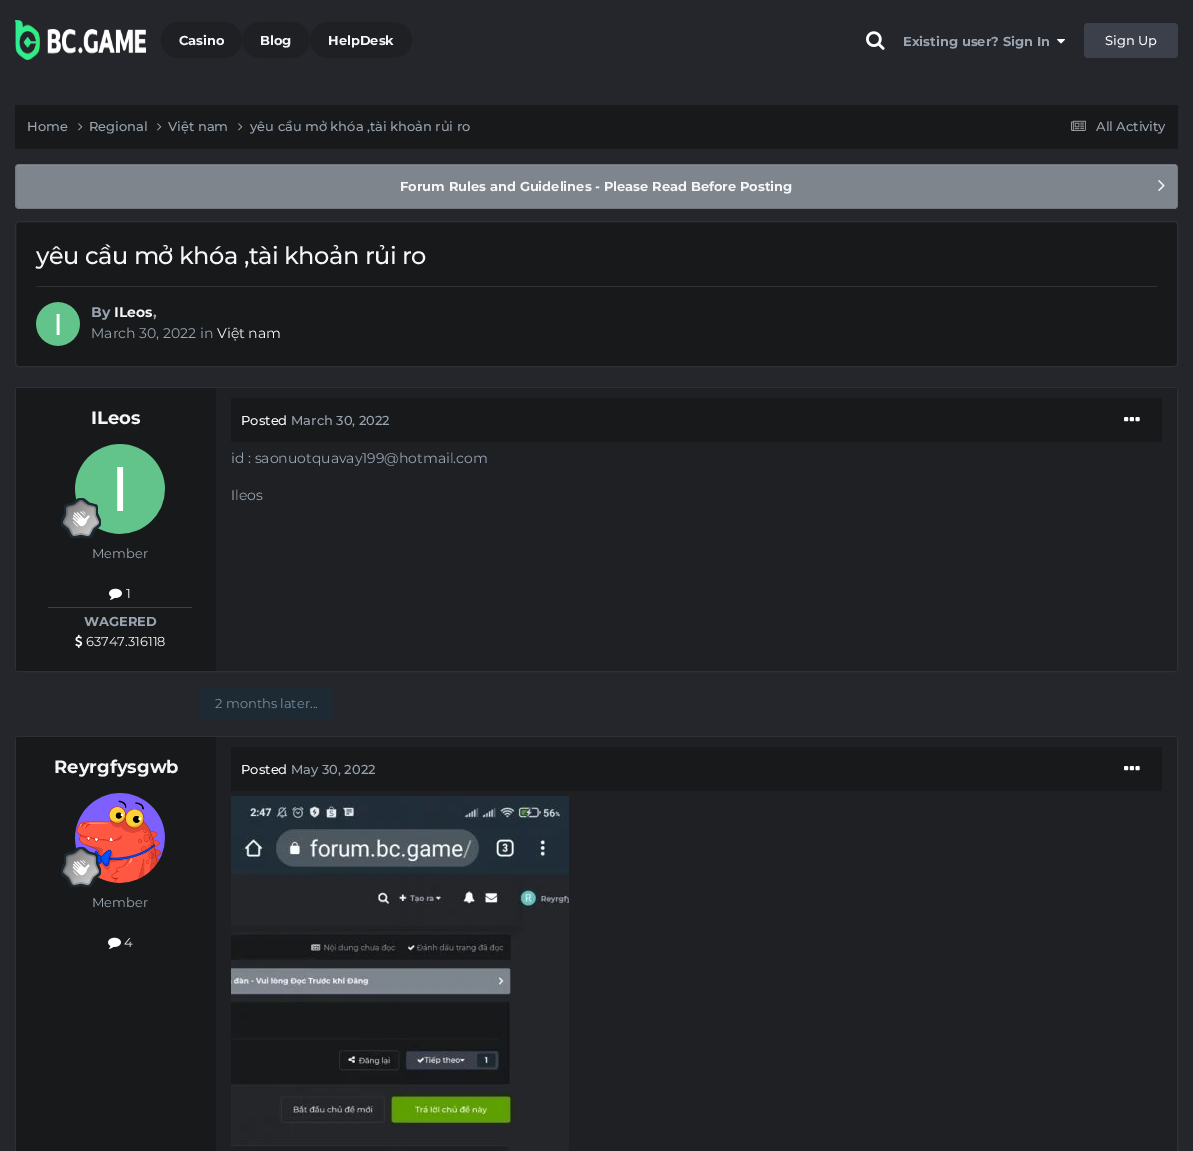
%!PS-Adobe-3.0
%%BoundingBox: 0 0 1193 1151
%%LanguageLevel: 3
%%Pages: 1
%%EndComments
%%BeginProlog
/setink { 3 { 255 div 3 1 roll } repeat setrgbcolor } def
/usefont { [ exch dup neg 0 0 3 -1 roll 0 0 ] selectfont } def
/drawtext { setink usefont moveto show } def
/fillbox { setink rectfill } def
/setalpha { dup .setfillconstantalpha .setstrokeconstantalpha } def
/rrect { 5 dict begin { /r /h /w /y /x } { exch def } forall
  x r add y moveto x w add y 2 copy h add r arct x w add y h add x 1 index r arct
  x y h add x y r arct x y 2 copy exch w add exch r arct closepath end } def
/drawimage { 5 dict begin { /h /w /y /x /name } { exch def } forall
  gsave x y translate w h scale
  w h 8 [w 0 0 h 0 0] name (r) file false 3 colorimage grestore end } def
%%EndProlog
%%BeginSetup
<< /PageSize [1193 1151] /PageUsesTransparency true >> setpagedevice
%%EndSetup
%%Page: 1 1
0 .pushpdf14devicefilter
0 1151 translate 1 -1 scale
4 setmiterlimit
0 0 1193 1151 36 38 43 fillbox
(assets/img1.rgb) 15 20 131 40 drawimage
30 32 36 setink
161 22 81 36 18 rrect fill
(Casino) 179 45 /Montserrat-Bold 13 245 246 247 drawtext
30 32 36 setink
242 22 68 36 18 rrect fill
(Blog) 260 45 /Montserrat-Bold 13 245 246 247 drawtext
30 32 36 setink
310 22 102 36 18 rrect fill
(HelpDesk) 328 45 /Montserrat-Bold 13 245 246 247 drawtext
(assets/img2.rgb) 866 31 19 19 drawimage
(Existing user? Sign In) 903 46 /Montserrat-Bold 13 153 164 176 drawtext
(assets/img3.rgb) 1057 39 8 5 drawimage
60 64 74 setink
1084 23 94 35 4 rrect fill
(Sign Up) 1105 45 /Montserrat-Medium 13 245 246 247 drawtext
15 105 1163 44 23 25 27 fillbox
(Home) 27 131 /Montserrat-Medium 13 153 164 176 drawtext
(assets/img4.rgb) 78 123 5 8 drawimage
(Regional) 89 131 /Montserrat-Medium 13 153 164 176 drawtext
(assets/img4.rgb) 157 123 5 8 drawimage
(Việt nam) 168 131 /Montserrat-Medium 13 153 164 176 drawtext
(assets/img4.rgb) 238 123 5 8 drawimage
gsave
250 117 220 20 rectclip
(yêu cầu mở khóa ,tài khoản rủi ro) 250 131 /Montserrat-Medium 13 153 164 176 drawtext
grestore
(assets/img5.rgb) 1071 120 15 11 drawimage
(All Activity) 1096 131 /Montserrat-Medium 13 153 164 176 drawtext
127 133 141 setink
15 164 1163 45 4 rrect fill
140 145 152 setink
19 166 moveto 1174 166 lineto 1176 166 1177 167 1177 169 curveto 1177 168 lineto 1177 166 1176 165 1174 165 curveto 19 165 lineto 17 165 16 166 16 168 curveto 16 169 lineto 16 167 17 166 19 166 curveto closepath fill
0.1 setalpha
0 0 0 setink
15.5 164.5 1162 44 3.5 rrect stroke
1 setalpha
(Forum Rules and Guidelines - Please Read Before Posting) 400 191 /Montserrat-Bold 13 245 246 247 drawtext
(assets/img6.rgb) 1158 180 7 11 drawimage
23 25 27 setink
15.5 221.5 1162 145 3.5 rrect gsave fill grestore
45 48 53 setink
stroke
/Montserrat-Medium 24 usefont
245 246 247 setink
36 264 moveto -0.5 0 (yêu cầu mở khóa ,tài khoản rủi ro) ashow
36 286 1121 1 45 48 55 fillbox
(assets/img7.rgb) 36 302 44 44 drawimage
(By) 91 317 /Montserrat-Bold 14 153 164 176 drawtext
(ILeos) 114 317 /Montserrat-Bold 14 245 246 247 drawtext
(,) 153 317 /Montserrat-Bold 14 153 164 176 drawtext
(March 30, 2022 in) 91 338 /Montserrat-Regular 14 153 164 176 drawtext
(Việt nam) 217 338 /Montserrat-Regular 14 245 246 247 drawtext
45 48 53 setink
15.5 387.5 1162 284 3.5 rrect stroke
16 388 200 283 23 25 27 fillbox
(ILeos) 91 424 /Montserrat-Bold 18 245 246 247 drawtext
(assets/img8.rgb) 75 444 90 90 drawimage
(assets/img9.rgb) 61 498 40 40 drawimage
(Member) 92 558 /Montserrat-Regular 13 153 164 176 drawtext
(assets/img10.rgb) 109 588 13 12 drawimage
(1) 126 598 /Montserrat-Regular 13 245 246 247 drawtext
48 607 144 1 60 64 74 fillbox
(WAGERED) 84 626 /Montserrat-Bold 13 153 164 176 drawtext
(assets/img11.rgb) 75 634 8 14 drawimage
(63747.316118) 86 646 /Montserrat-Regular 13 245 246 247 drawtext
216 388 961 283 30 32 36 fillbox
231 398 931 44 23 25 27 fillbox
(Posted) 241 425 /Montserrat-Medium 13 245 246 247 drawtext
(March 30, 2022) 291 425 /Montserrat-Medium 13 153 164 176 drawtext
(assets/img12.rgb) 1124 417 16 5 drawimage
(id : saonuotquavay199@hotmail.com) 231 463 /Montserrat-Regular 14 153 164 176 drawtext
(Ileos) 231 500 /Montserrat-Regular 14 153 164 176 drawtext
29 42 52 setink
199 688 135 32 4 rrect fill
(2 months later...) 215 708 /Montserrat-Regular 13 116 141 162 drawtext
45 48 53 setink
15.5 736.5 1162 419 3.5 rrect stroke
16 737 200 414 23 25 27 fillbox
(Reyrgfysgwb) 54 773 /Montserrat-Bold 18 245 246 247 drawtext
(assets/img13.rgb) 75 793 90 90 drawimage
(assets/img14.rgb) 61 847 40 40 drawimage
(Member) 92 907 /Montserrat-Regular 13 153 164 176 drawtext
(assets/img10.rgb) 108 937 13 12 drawimage
(4) 124 947 /Montserrat-Regular 13 245 246 247 drawtext
216 737 961 414 30 32 36 fillbox
231 747 931 44 23 25 27 fillbox
(Posted) 241 774 /Montserrat-Medium 13 245 246 247 drawtext
(May 30, 2022) 291 774 /Montserrat-Medium 13 153 164 176 drawtext
(assets/img12.rgb) 1124 766 16 5 drawimage
(assets/img15.rgb) 231 796 338 355 drawimage
.poppdf14devicefilter showpage
%%EOF
